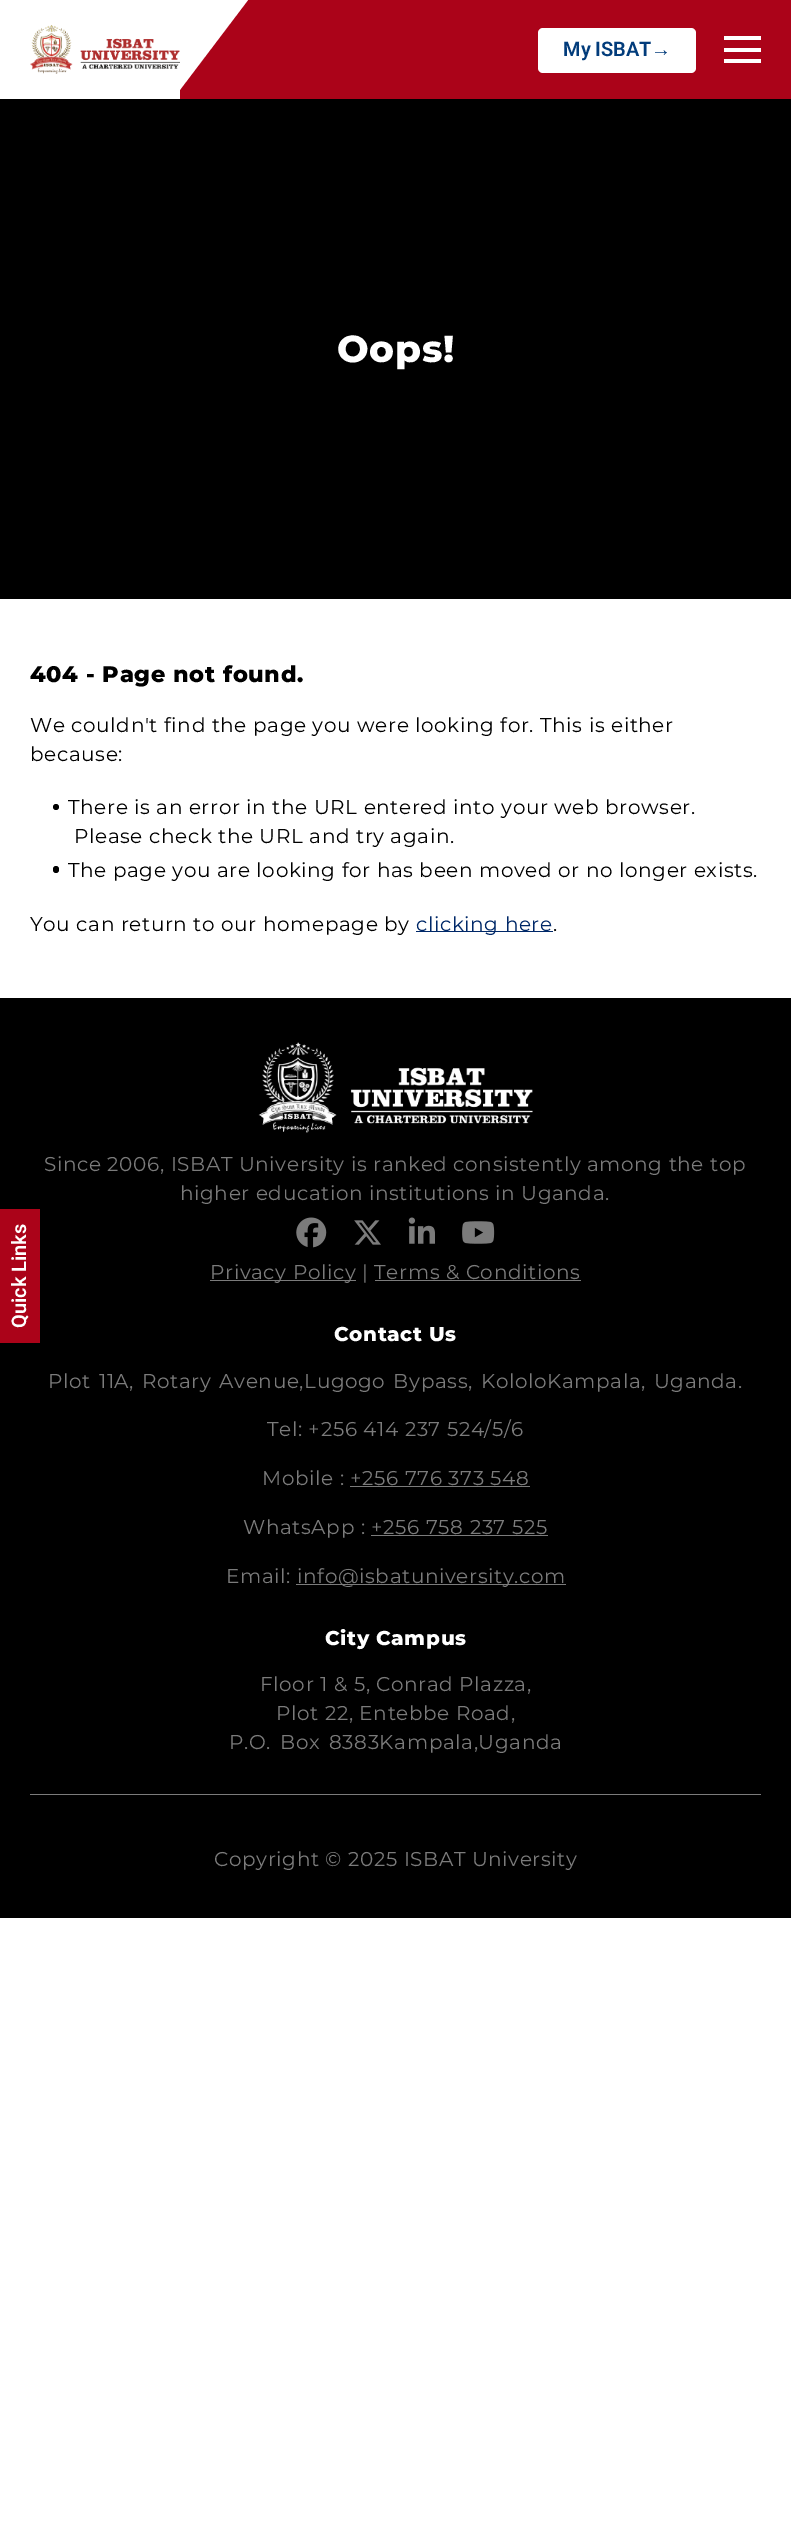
%!PS-Adobe-3.0
%%BoundingBox: 0 0 791 2546
%%LanguageLevel: 3
%%Pages: 1
%%EndComments
%%BeginProlog
/setink { 3 { 255 div 3 1 roll } repeat setrgbcolor } def
/usefont { [ exch dup neg 0 0 3 -1 roll 0 0 ] selectfont } def
/drawtext { setink usefont moveto show } def
/fillbox { setink rectfill } def
/disc { newpath 0 360 arc closepath } def
/rrect { 5 dict begin { /r /h /w /y /x } { exch def } forall
  x r add y moveto x w add y 2 copy h add r arct x w add y h add x 1 index r arct
  x y h add x y r arct x y 2 copy exch w add exch r arct closepath end } def
/drawimage { 5 dict begin { /h /w /y /x /name } { exch def } forall
  gsave x y translate w h scale
  w h 8 [w 0 0 h 0 0] name (r) file false 3 colorimage grestore end } def
%%EndProlog
%%BeginSetup
<< /PageSize [791 2546] >> setpagedevice
%%EndSetup
%%Page: 1 1
0 2546 translate 1 -1 scale
4 setmiterlimit
0 0 791 2546 255 255 255 fillbox
0 998 791 920 0 0 0 fillbox
0 1209 40 134 171 3 25 fillbox
/Roboto-SemiBold 20 usefont
255 255 255 setink
gsave 26 1328 translate -90 rotate 0 0 moveto (Quick Links) show grestore
180 0 611 99 171 3 25 fillbox
255 255 255 setink
173 0 moveto 173 99 lineto 248 0 lineto closepath fill
(assets/img1.rgb) 30 25 150 49 drawimage
538 28 158 45 5 rrect fill
(My ISBAT) 563 56 /Roboto-SemiBold 20 2 60 123 drawtext
(→) 651 56 /LiberationSerif-Bold 20 2 60 123 drawtext
724 36 37 4 255 255 255 fillbox
724 48 37 4 255 255 255 fillbox
724 59 37 4 255 255 255 fillbox
0 99 791 500 0 0 0 fillbox
/Montserrat-ExtraBold 37.5 usefont
255 255 255 setink
337 362 moveto 0.62 0 (Oops!) ashow
/Montserrat-ExtraBold 22.5 usefont
0 0 0 setink
30 682 moveto 0.62 0 (404 - Page not found.) ashow
/Montserrat-Regular 20 usefont
30 732 moveto 0.62 0 (We couldn't find the page you were looking for. This is either) ashow
30 761 moveto 0.62 0 (because:) ashow
56 807 3 disc fill
68 814 moveto 0.62 0 (There is an error in the URL entered into your web browser.) ashow
74 843 moveto 0.62 0 (Please check the URL and try again.) ashow
53 866 6 7 3 rrect fill
68 877 moveto 0.62 0 (The page you are looking for has been moved or no longer exists.) ashow
30 931 moveto 0.62 0 (You can return to our homepage by) ashow
416 931 137 1 0 40 104 fillbox
416 931 moveto 0.62 0 (clicking here) ashow
0 0 0 setink
553 931 moveto 0.62 0 (.) ashow
(assets/img2.rgb) 258 1042 275 91 drawimage
123 123 123 setink
44 1171 moveto 0.62 0 (Since 2006, ISBAT University is ranked consistently among the top) ashow
180 1200 moveto 0.62 0 (higher education institutions in Uganda.) ashow
(assets/img3.rgb) 296 1217 31 31 drawimage
(assets/img4.rgb) 354 1220 27 25 drawimage
(assets/img5.rgb) 408 1217 27 27 drawimage
(assets/img6.rgb) 462 1221 33 23 drawimage
210 1280 146 1 123 123 123 fillbox
210 1279 moveto 0.62 0 (Privacy Policy | Terms & Conditions) ashow
375 1280 206 1 123 123 123 fillbox
/Montserrat-ExtraBold 20 usefont
255 255 255 setink
334 1341 moveto 0.62 0 (Contact Us) ashow
/Montserrat-Regular 20 usefont
123 123 123 setink
48 1388 moveto 2 0 32 0.62 0 (Plot 11A, Rotary Avenue,Lugogo Bypass, KololoKampala, Uganda.) awidthshow
267 1436 moveto 0.62 0 (Tel: +256 414 237 524/5/6) ashow
262 1485 moveto 0.62 0 (Mobile : +256 776 373 548) ashow
350 1486 180 1 123 123 123 fillbox
243 1534 moveto 0.62 0 (WhatsApp : +256 758 237 525) ashow
371 1535 177 1 123 123 123 fillbox
226 1583 moveto 0.62 0 (Email:) ashow
296 1584 270 1 123 123 123 fillbox
297 1583 moveto 0.62 0 (info@isbatuniversity.com) ashow
/Montserrat-ExtraBold 20 usefont
255 255 255 setink
325 1645 moveto 0.62 0 (City Campus) ashow
/Montserrat-Regular 20 usefont
123 123 123 setink
260 1691 moveto 0.62 0 (Floor 1 & 5, Conrad Plazza,) ashow
276 1720 moveto 0.62 0 (Plot 22, Entebbe Road,) ashow
229 1749 moveto 3 0 32 0.62 0 (P.O. Box 8383Kampala,Uganda) awidthshow
30 1794 731 1 123 123 123 fillbox
214 1866 moveto 0.62 0 (Copyright © 2025 ISBAT University) ashow
showpage
%%EOF
